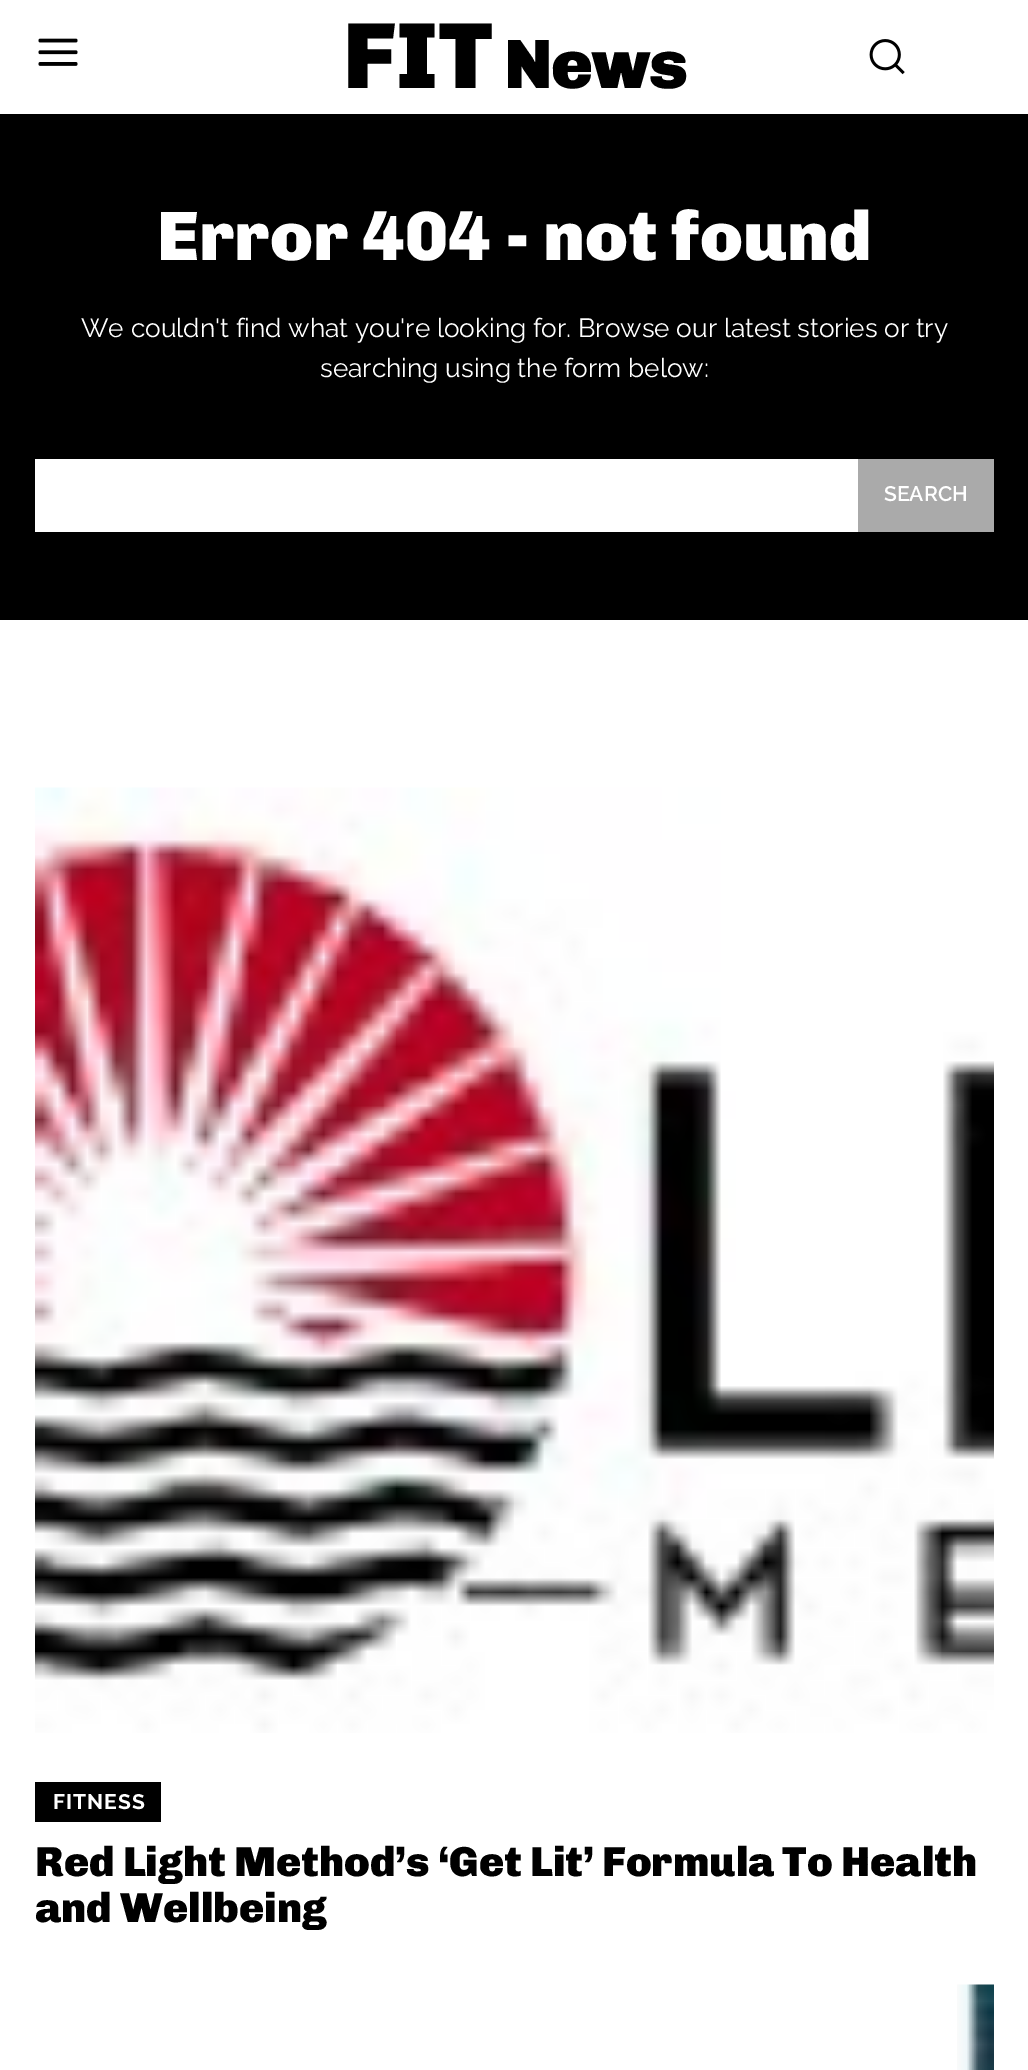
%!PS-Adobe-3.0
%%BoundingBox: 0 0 1028 2070
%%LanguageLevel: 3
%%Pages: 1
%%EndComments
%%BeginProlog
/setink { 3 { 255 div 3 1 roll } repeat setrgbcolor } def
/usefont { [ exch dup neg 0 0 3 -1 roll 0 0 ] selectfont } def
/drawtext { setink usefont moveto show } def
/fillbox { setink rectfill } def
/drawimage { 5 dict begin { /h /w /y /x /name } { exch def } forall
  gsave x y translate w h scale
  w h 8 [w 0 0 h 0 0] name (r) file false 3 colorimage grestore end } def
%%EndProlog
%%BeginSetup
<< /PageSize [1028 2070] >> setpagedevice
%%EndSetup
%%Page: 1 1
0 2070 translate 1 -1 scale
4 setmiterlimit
0 0 1028 2070 255 255 255 fillbox
(assets/img1.rgb) 38 38 40 28 drawimage
(FIT) 343 88 /Chivo-Black 94 0 0 0 drawtext
/Chivo-Black 70 usefont
504 88 moveto -2 0 (News) ashow
(assets/img2.rgb) 869 39 36 36 drawimage
0 114 1028 506 0 0 0 fillbox
(Error 404 - not found) 157 260 /Chivo-Black 70 255 255 255 drawtext
(We couldn't find what you're looking for. Browse our latest stories or try) 81 337 /Raleway-Regular 26.25 255 255 255 drawtext
(searching using the form below:) 320 377 /Raleway-Regular 26.25 255 255 255 drawtext
35 459 823 73 255 255 255 fillbox
858 459 136 73 170 170 170 fillbox
(SEARCH) 884 501 /Raleway-SemiBold 21 255 255 255 drawtext
(assets/img3.rgb) 35 787 959 946 drawimage
35 1782 126 40 0 0 0 fillbox
/Raleway-Bold 21 usefont
255 255 255 setink
53 1809 moveto 1 0 (FITNESS) ashow
(Red Light Method’s ‘Get Lit’ Formula To Health) 35 1876 /Chivo-Black 42 0 0 0 drawtext
(and Wellbeing) 35 1922 /Chivo-Black 42 0 0 0 drawtext
(assets/img4.rgb) 957 1984 37 86 drawimage
showpage
%%EOF
